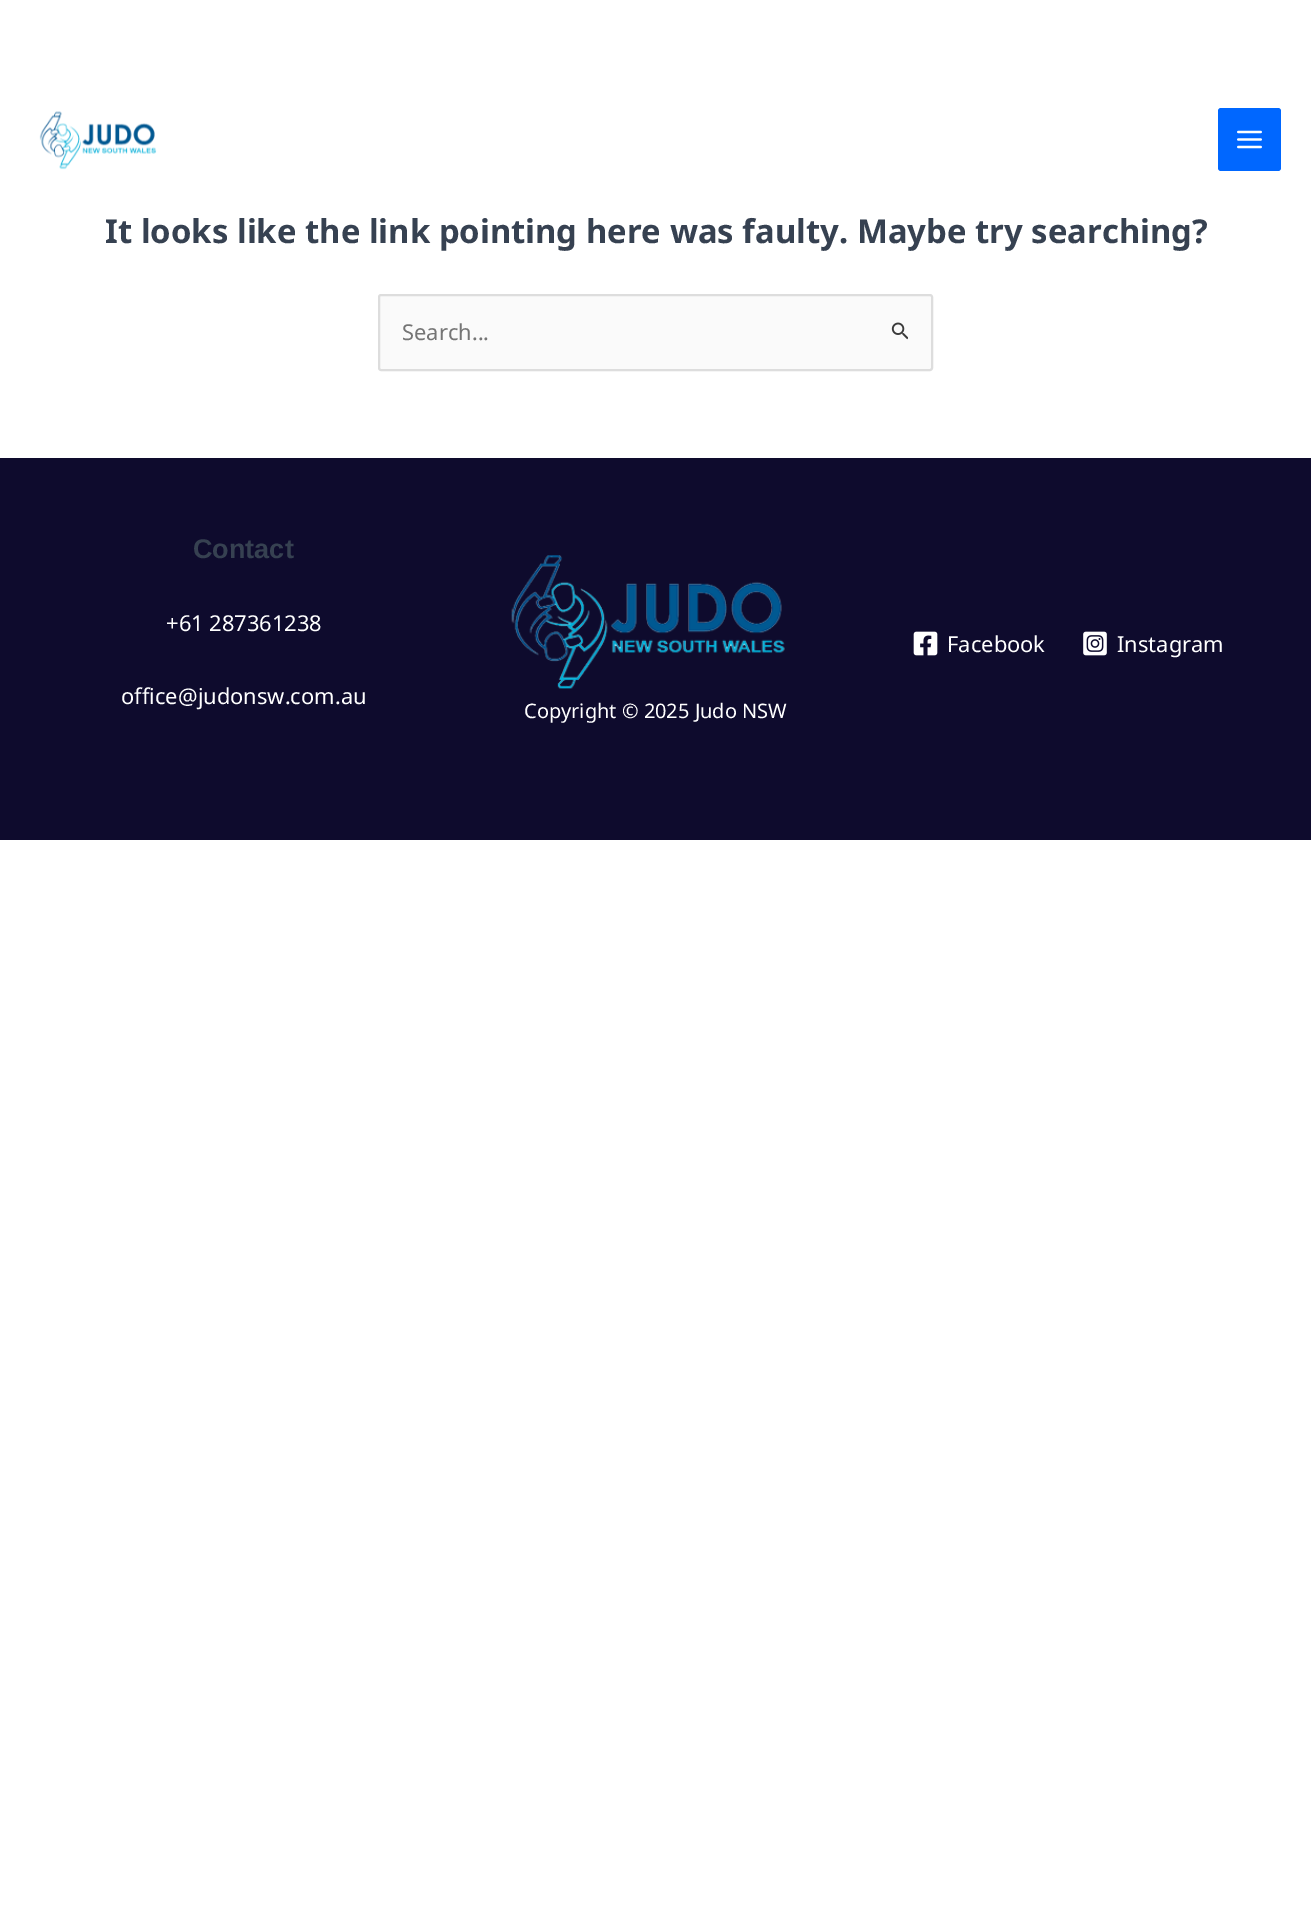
%!PS-Adobe-3.0
%%BoundingBox: 0 0 1311 1914
%%LanguageLevel: 3
%%Pages: 1
%%EndComments
%%BeginProlog
/setink { 3 { 255 div 3 1 roll } repeat setrgbcolor } def
/usefont { [ exch dup neg 0 0 3 -1 roll 0 0 ] selectfont } def
/drawtext { setink usefont moveto show } def
/fillbox { setink rectfill } def
/rrect { 5 dict begin { /r /h /w /y /x } { exch def } forall
  x r add y moveto x w add y 2 copy h add r arct x w add y h add x 1 index r arct
  x y h add x y r arct x y 2 copy exch w add exch r arct closepath end } def
/drawimage { 5 dict begin { /h /w /y /x /name } { exch def } forall
  gsave x y translate w h scale
  w h 8 [w 0 0 h 0 0] name (r) file false 3 colorimage grestore end } def
%%EndProlog
%%BeginSetup
<< /PageSize [1311 1914] >> setpagedevice
%%EndSetup
%%Page: 1 1
0 1914 translate 1 -1 scale
4 setmiterlimit
0 0 1311 1914 255 255 255 fillbox
(assets/img1.rgb) 39 111 118 59 drawimage
0 103 255 setink
1218 108 63 63 3 rrect fill
(assets/img2.rgb) 1237 130 25 19 drawimage
(It looks like the link pointing here was faulty. Maybe try searching?) 105 243 /NotoSans-Bold 32.85 54 65 81 drawtext
250 250 250 setink
379 295 553 75 2 rrect gsave fill grestore
221 221 221 setink
2 setlinewidth
stroke
(Search...) 402 340 /NotoSans-Regular 21.9 117 117 117 drawtext
(assets/img3.rgb) 891 322 17 18 drawimage
0 458 1311 382 14 11 45 fillbox
(Contact) 193 558 /LiberationSans-Bold 27 54 65 81 drawtext
(+61 287361238) 166 631 /NotoSans-Regular 21.9 255 255 255 drawtext
(office@judonsw.com.au) 121 704 /NotoSans-Regular 21.9 255 255 255 drawtext
(assets/img4.rgb) 913 631 25 25 drawimage
(Facebook) 947 652 /NotoSans-Regular 21.9 255 255 255 drawtext
(assets/img5.rgb) 1083 631 24 25 drawimage
(Instagram) 1117 652 /NotoSans-Regular 21.9 255 255 255 drawtext
(assets/img6.rgb) 511 555 274 134 drawimage
(Copyright © 2025 Judo NSW) 524 718 /NotoSans-Regular 20 255 255 255 drawtext
showpage
%%EOF
